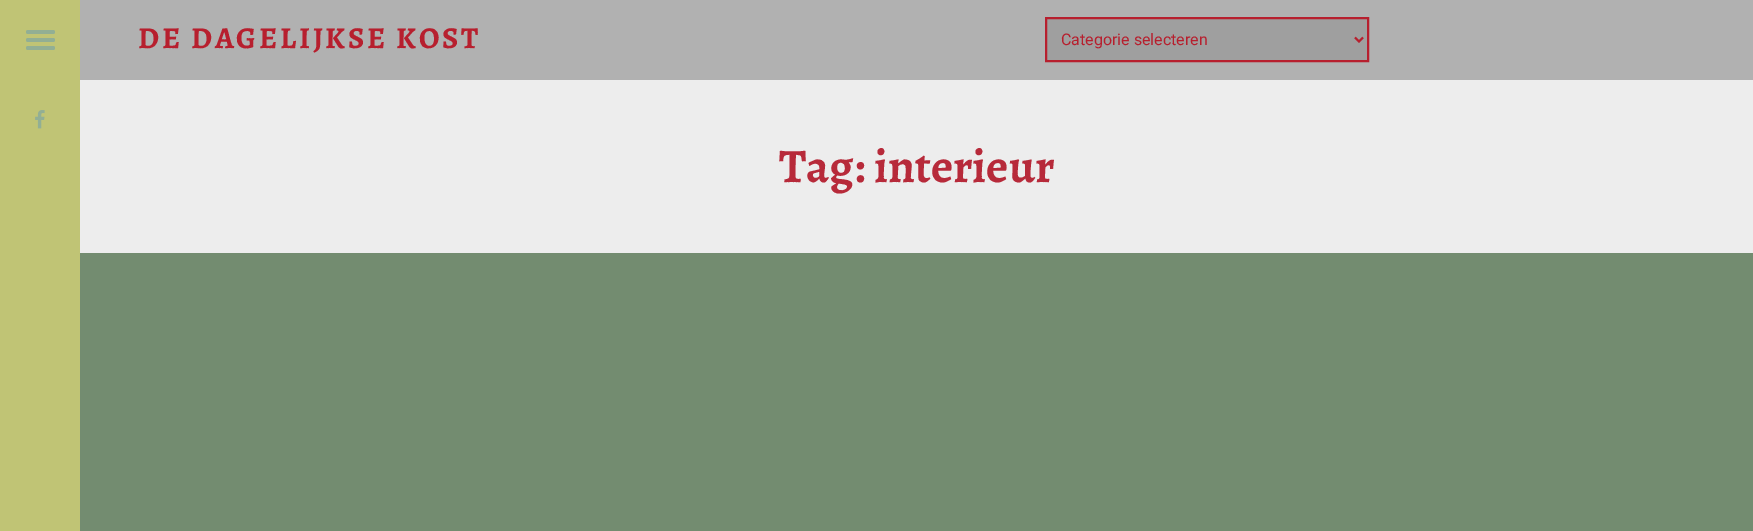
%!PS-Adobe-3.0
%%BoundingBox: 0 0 1753 531
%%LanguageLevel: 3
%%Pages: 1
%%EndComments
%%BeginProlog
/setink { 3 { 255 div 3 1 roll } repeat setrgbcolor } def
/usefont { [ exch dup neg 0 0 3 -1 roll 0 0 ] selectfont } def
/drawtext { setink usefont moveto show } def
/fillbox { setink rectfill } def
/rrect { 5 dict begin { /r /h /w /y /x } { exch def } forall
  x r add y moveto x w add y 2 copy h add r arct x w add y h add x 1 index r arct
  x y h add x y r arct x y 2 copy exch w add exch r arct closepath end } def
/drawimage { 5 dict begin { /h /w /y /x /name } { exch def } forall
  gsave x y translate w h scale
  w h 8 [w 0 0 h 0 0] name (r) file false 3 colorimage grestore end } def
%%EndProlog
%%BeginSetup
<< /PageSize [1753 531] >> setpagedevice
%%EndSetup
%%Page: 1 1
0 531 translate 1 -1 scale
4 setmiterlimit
0 0 1753 531 237 237 237 fillbox
0 0 80 531 192 196 117 fillbox
146 175 148 setink
26 30 29 4 2 rrect fill
26 38 29 4 2 rrect fill
26 46 29 4 2 rrect fill
(assets/img1.rgb) 35 110 10 19 drawimage
80 0 1673 80 177 177 177 fillbox
/Alegreya-Bold 30.4 usefont
183 31 46 setink
138 48 moveto 2.75 0 (DE DAGELIJKSE KOST) ashow
159 159 159 setink
1046 18 moveto 1368 18 lineto 1368 61 lineto 1046 61 lineto closepath gsave fill grestore
183 31 46 setink
2 setlinewidth
stroke
1355 37.5 moveto 1359 41.5 lineto 1363 37.5 lineto stroke
(Categorie selecteren) 1061 45 /Roboto-Regular 16 183 31 46 drawtext
(Tag: interieur) 779 182 /Alegreya-Bold 48 183 42 58 drawtext
80 253 1673 278 115 140 112 fillbox
showpage
%%EOF
